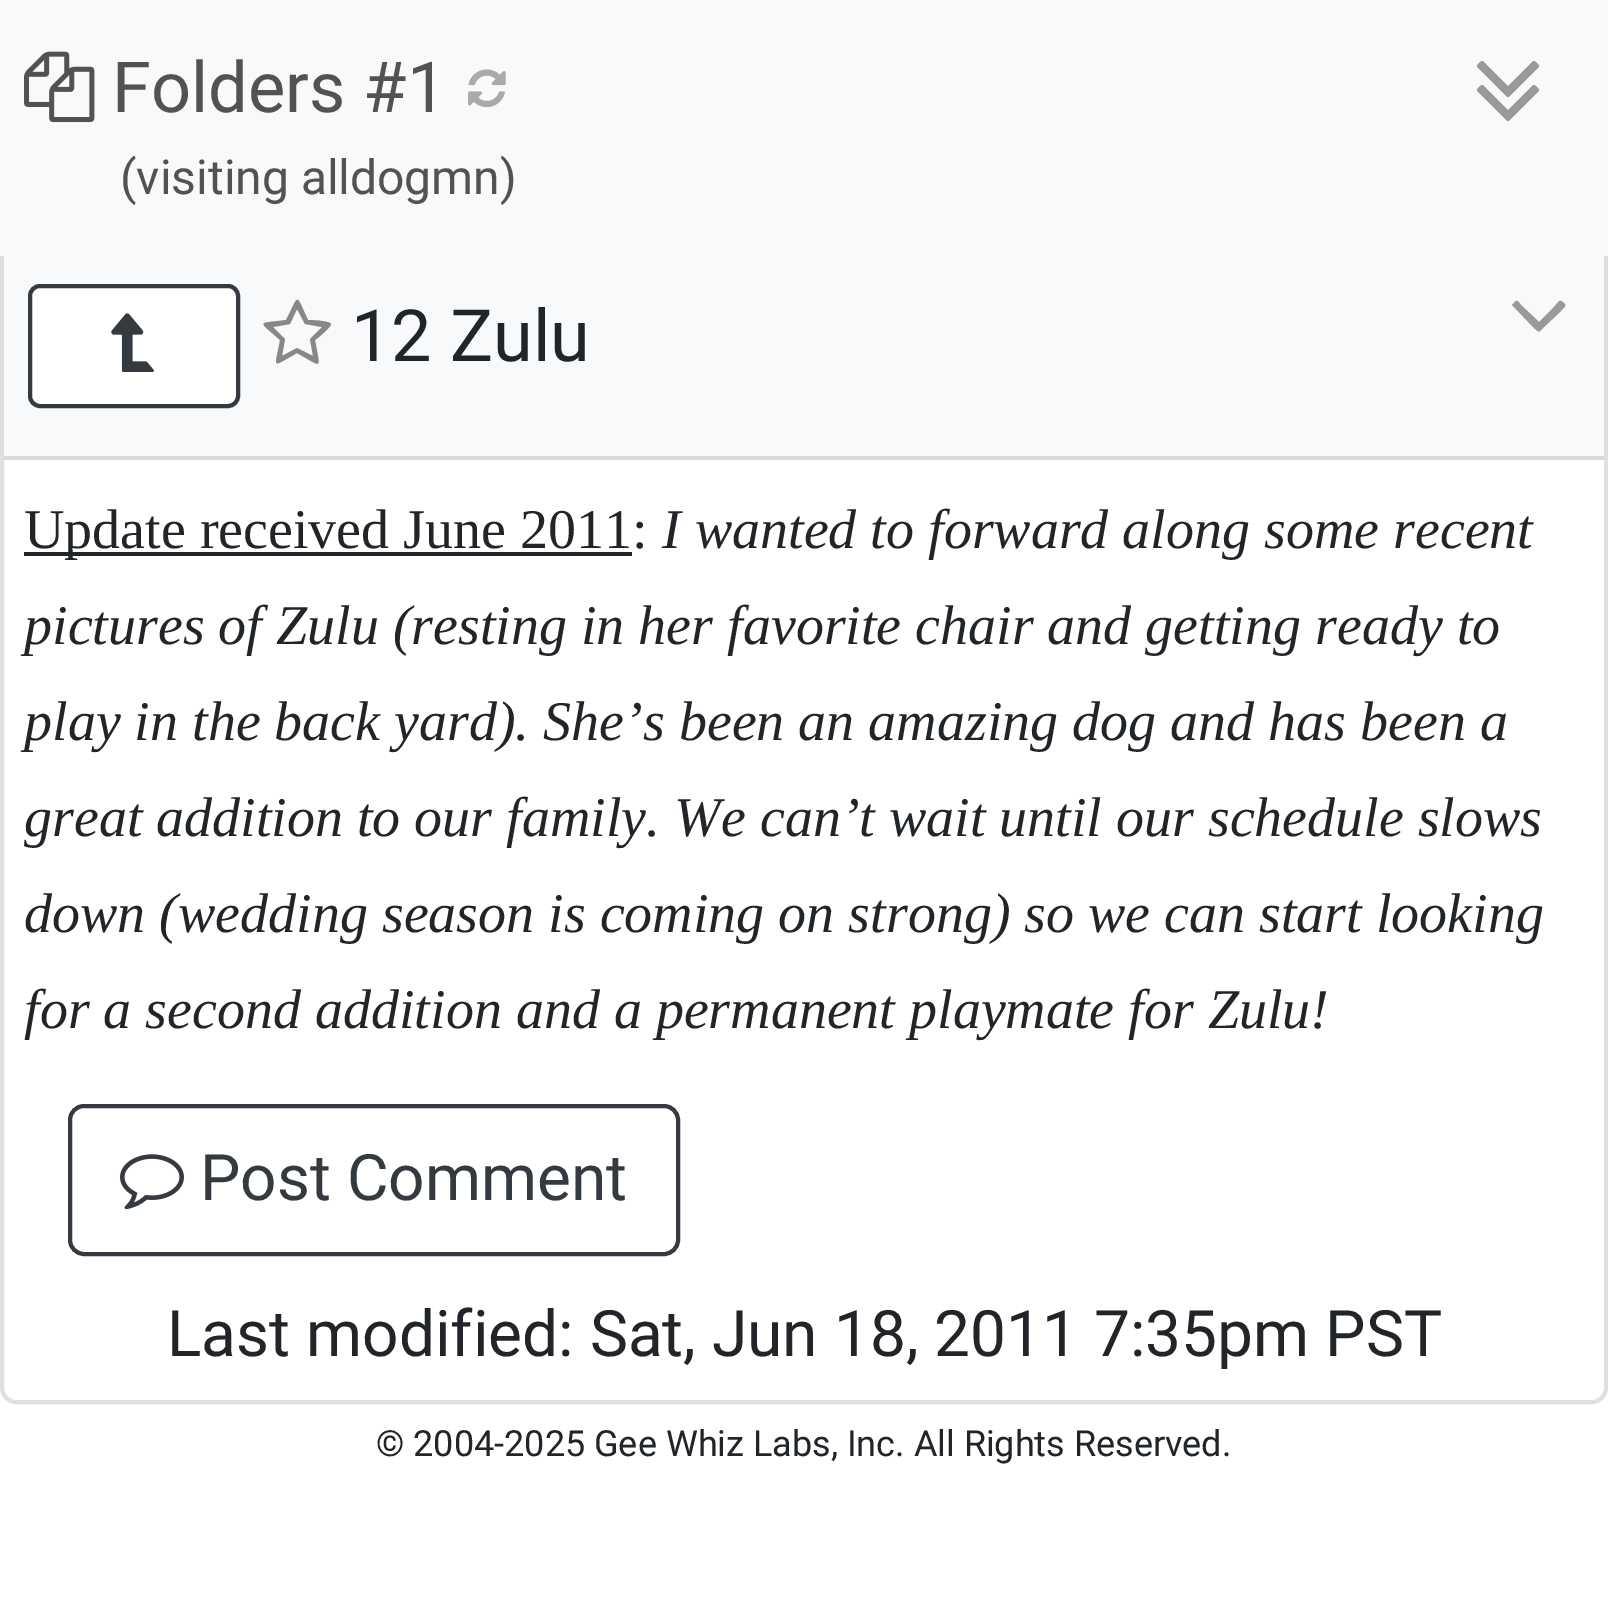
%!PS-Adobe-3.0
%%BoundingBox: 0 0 1608 1621
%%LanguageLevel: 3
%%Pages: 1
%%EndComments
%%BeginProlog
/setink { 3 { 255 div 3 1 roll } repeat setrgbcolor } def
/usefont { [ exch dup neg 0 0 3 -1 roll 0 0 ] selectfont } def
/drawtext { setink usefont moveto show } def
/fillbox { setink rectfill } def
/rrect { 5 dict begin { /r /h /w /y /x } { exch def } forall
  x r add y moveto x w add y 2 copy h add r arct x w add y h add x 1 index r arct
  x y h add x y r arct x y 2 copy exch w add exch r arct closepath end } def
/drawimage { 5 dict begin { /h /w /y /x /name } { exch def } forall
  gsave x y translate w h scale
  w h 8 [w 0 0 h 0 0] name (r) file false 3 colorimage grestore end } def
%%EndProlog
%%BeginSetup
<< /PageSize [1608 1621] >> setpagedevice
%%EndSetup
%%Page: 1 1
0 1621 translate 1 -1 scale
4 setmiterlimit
0 0 1608 1621 255 255 255 fillbox
223 223 223 setink
4 setlinewidth
2 234 1604 1168 14 rrect stroke
0 0 1608 256 248 249 250 fillbox
(assets/img1.rgb) 24 51 71 72 drawimage
(Folders #1) 112 112 /Roboto-Regular 70.5 82 82 82 drawtext
(assets/img2.rgb) 468 69 38 39 drawimage
(\(visiting alldogmn\)) 120 194 /Roboto-Regular 48 82 82 82 drawtext
(assets/img3.rgb) 1476 60 64 62 drawimage
4 256 1600 200 248 249 250 fillbox
4 456 1600 4 217 218 219 fillbox
255 255 255 setink
30 286 208 120 10 rrect gsave fill grestore
52 58 64 setink
stroke
(assets/img4.rgb) 111 313 43 59 drawimage
136 136 136 setink
310 339 moveto 322 327 lineto 305 324 lineto 297 309 lineto 290 324 lineto 273 327 lineto 285 339 lineto 282 356 lineto 297 348 lineto 313 356 lineto closepath 331 324 moveto 331 327 318 338 315 340 curveto 320 370 324 368 297 353 curveto 270 368 275 369 280 340 curveto 258 320 256 324 286 320 curveto 300 293 295 293 308 320 curveto 312 320 331 321 331 324 curveto closepath fill
(12 Zulu) 351 361 /Roboto-Regular 72 33 37 41 drawtext
153 153 153 setink
1565 304 moveto 1567 306 1561 310 1561 311 curveto 1544 327 lineto 1538 333 1540 333 1533 327 curveto 1513 306 lineto 1511 305 1513 304 1514 303 curveto 1517 299 1518 301 1521 305 curveto 1539 322 lineto 1553 308 lineto 1560 301 1559 298 1565 304 curveto closepath fill
24 552 608 4 33 37 41 fillbox
(Update received June 2011:) 24 548 /LiberationSerif-Regular 56 33 37 41 drawtext
(I wanted to forward along some recent) 662 548 /LiberationSerif-Italic 56 33 37 41 drawtext
(pictures of Zulu \(resting in her favorite chair and getting ready to) 24 644 /LiberationSerif-Italic 56 33 37 41 drawtext
(play in the back yard\). She’s been an amazing dog and has been a) 24 740 /LiberationSerif-Italic 56 33 37 41 drawtext
(great addition to our family. We can’t wait until our schedule slows) 24 836 /LiberationSerif-Italic 56 33 37 41 drawtext
(down \(wedding season is coming on strong\) so we can start looking) 24 932 /LiberationSerif-Italic 56 33 37 41 drawtext
(for a second addition and a permanent playmate for Zulu!) 24 1028 /LiberationSerif-Italic 56 33 37 41 drawtext
52 58 64 setink
70 1106 608 148 14 rrect stroke
(assets/img5.rgb) 120 1154 64 56 drawimage
(Post Comment) 200 1200 /Roboto-Regular 64 52 58 64 drawtext
(Last modified: Sat, Jun 18, 2011 7:35pm PST) 167 1356 /Roboto-Regular 64 33 37 41 drawtext
(© 2004-2025 Gee Whiz Labs, Inc. All Rights Reserved.) 376 1456 /Roboto-Regular 36 33 37 41 drawtext
showpage
%%EOF
